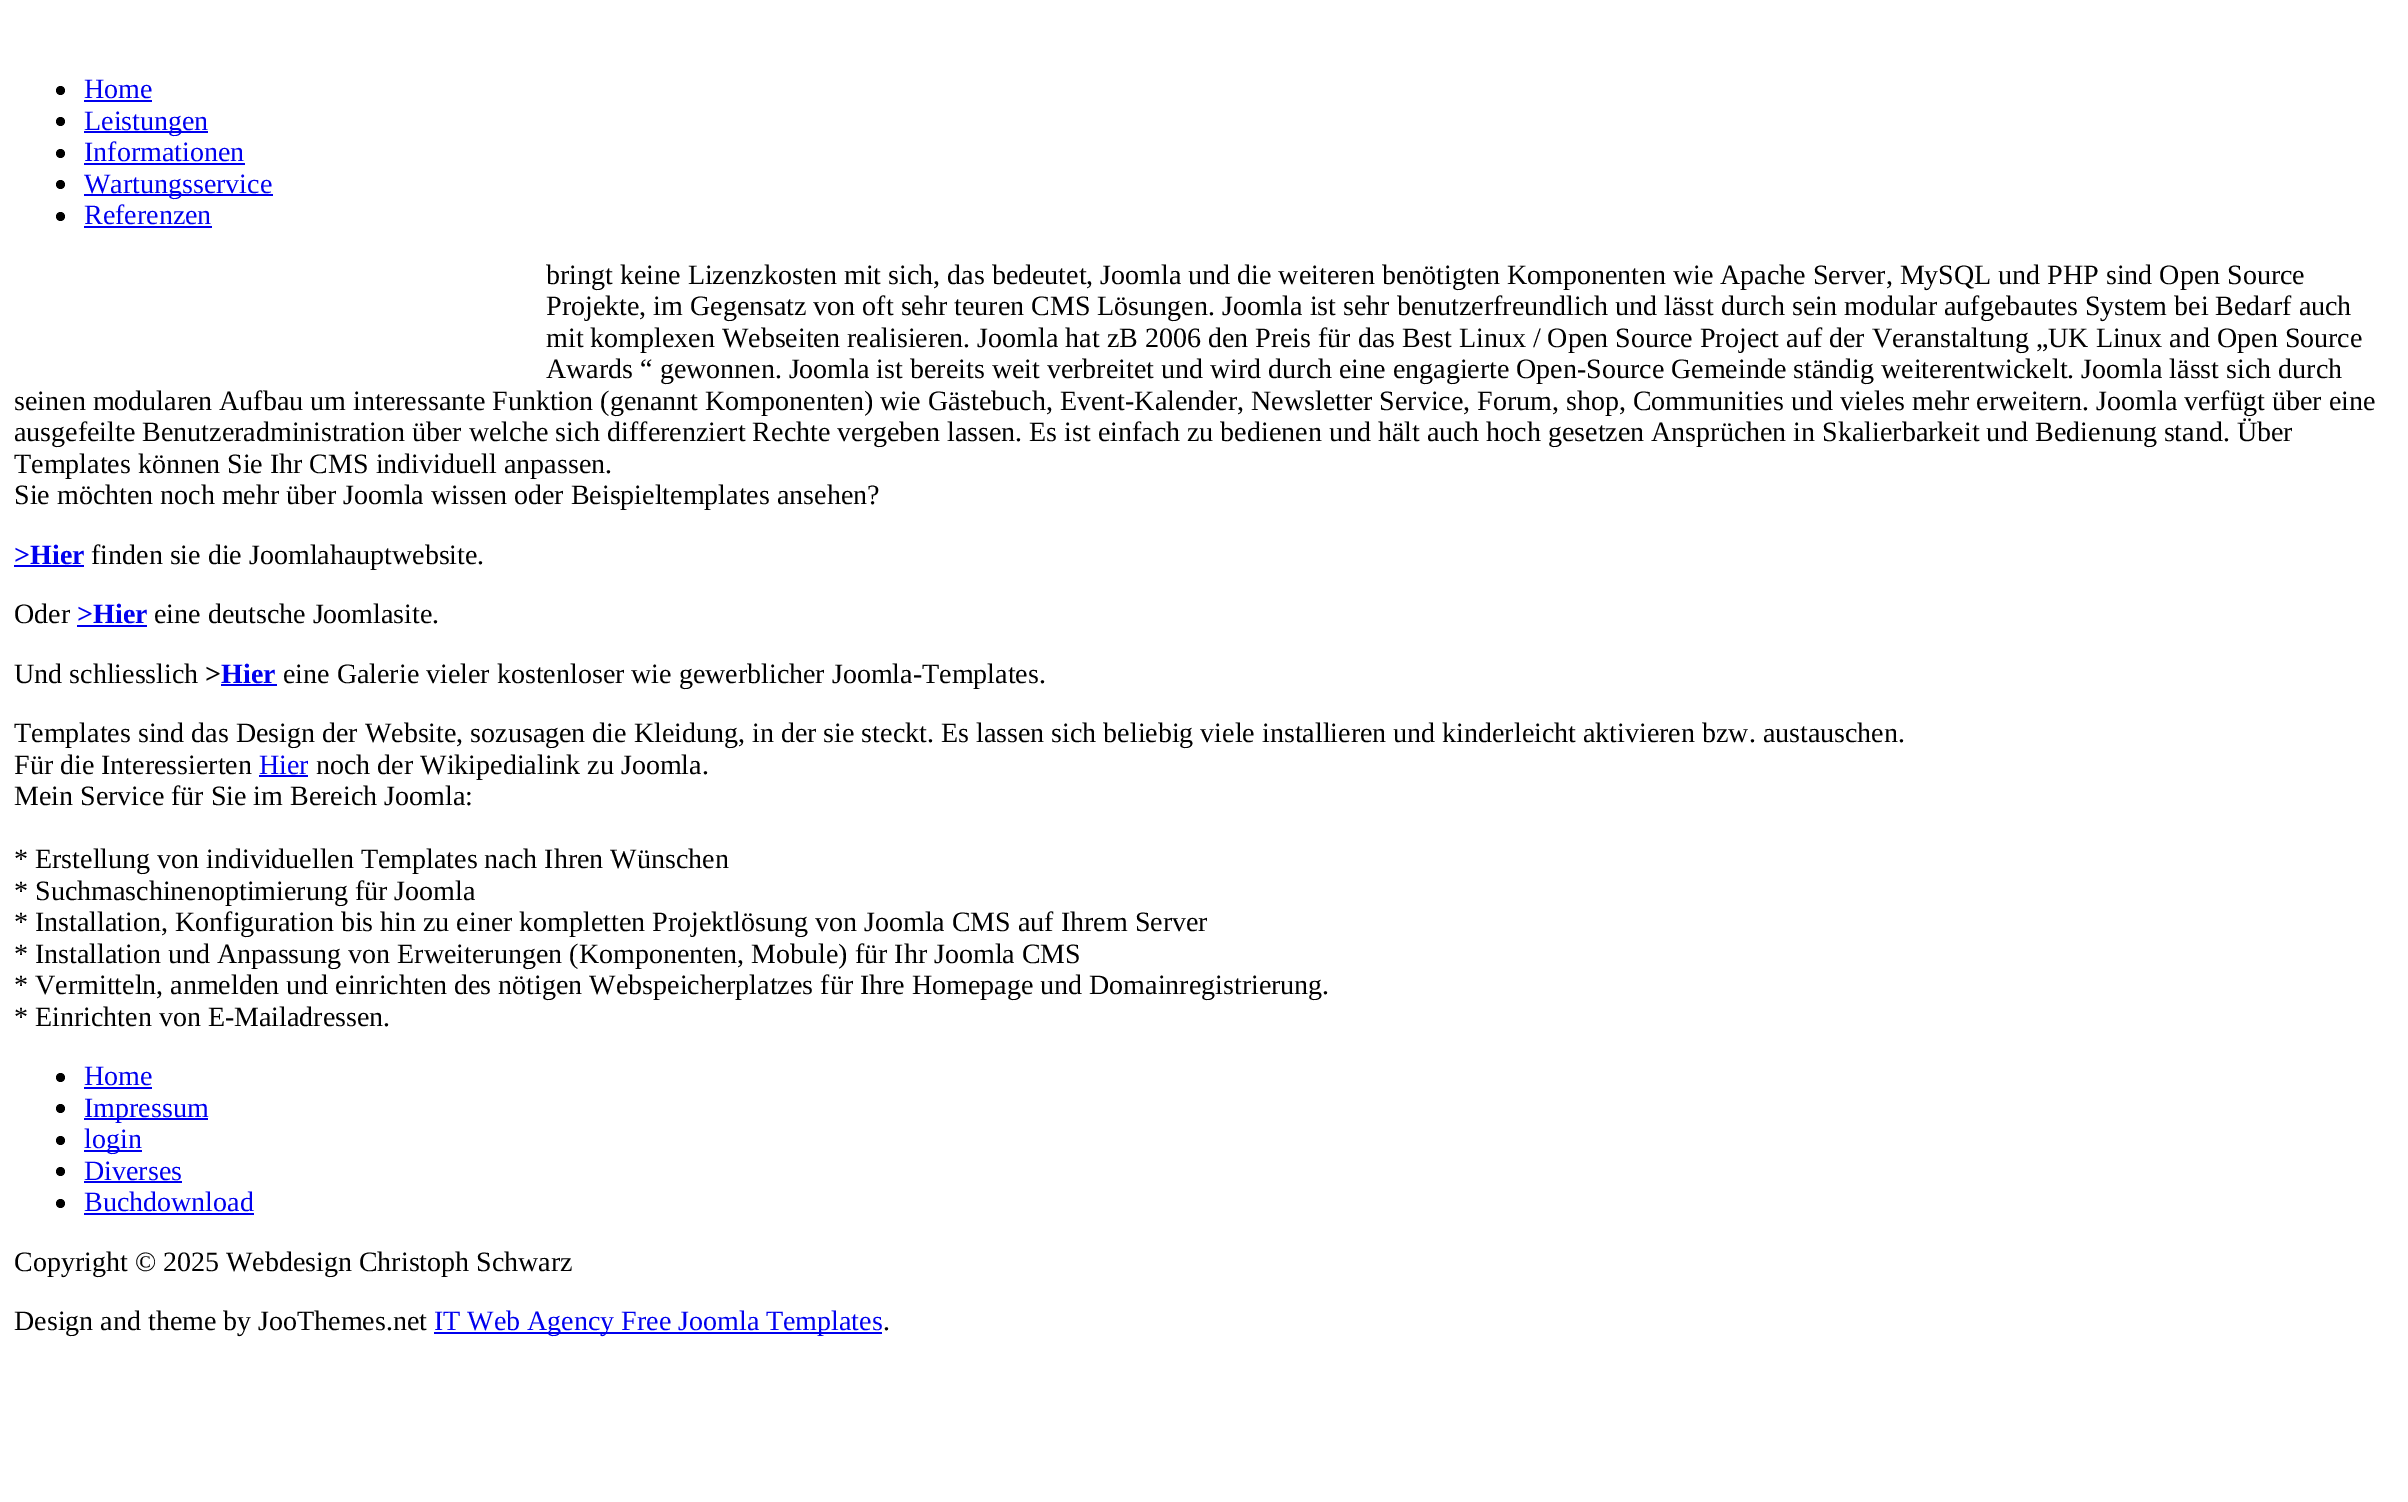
%!PS-Adobe-3.0
%%BoundingBox: 0 0 2408 1502
%%LanguageLevel: 3
%%Pages: 1
%%EndComments
%%BeginProlog
/setink { 3 { 255 div 3 1 roll } repeat setrgbcolor } def
/usefont { [ exch dup neg 0 0 3 -1 roll 0 0 ] selectfont } def
/drawtext { setink usefont moveto show } def
/fillbox { setink rectfill } def
/disc { newpath 0 360 arc closepath } def
%%EndProlog
%%BeginSetup
<< /PageSize [2408 1502] >> setpagedevice
%%EndSetup
%%Page: 1 1
0 1502 translate 1 -1 scale
4 setmiterlimit
0 0 2408 1502 255 255 255 fillbox
0 0 0 setink
60.5 90.5 4.5 disc fill
(Home) 84 98 /LiberationSerif-Regular 28 0 0 238 drawtext
84 100 68 2 0 0 238 fillbox
0 0 0 setink
60.5 121.5 4.5 disc fill
84 131 124 2 0 0 238 fillbox
(Leistungen) 84 130 /LiberationSerif-Regular 28 0 0 238 drawtext
0 0 0 setink
60.5 153.5 4.5 disc fill
(Informationen) 84 161 /LiberationSerif-Regular 28 0 0 238 drawtext
84 163 161 2 0 0 238 fillbox
0 0 0 setink
60.5 184.5 4.5 disc fill
84 194 189 2 0 0 238 fillbox
(Wartungsservice) 84 193 /LiberationSerif-Regular 28 0 0 238 drawtext
0 0 0 setink
60.5 216.5 4.5 disc fill
(Referenzen) 84 224 /LiberationSerif-Regular 28 0 0 238 drawtext
84 226 128 2 0 0 238 fillbox
(bringt keine Lizenzkosten mit sich, das bedeutet, Joomla und die weiteren benötigten Komponenten wie Apache Server, MySQL und PHP sind Open Source) 546 284 /LiberationSerif-Regular 28 0 0 0 drawtext
(Projekte, im Gegensatz von oft sehr teuren CMS Lösungen. Joomla ist sehr benutzerfreundlich und lässt durch sein modular aufgebautes System bei Bedarf auch) 546 315 /LiberationSerif-Regular 28 0 0 0 drawtext
(mit komplexen Webseiten realisieren. Joomla hat zB 2006 den Preis für das Best Linux / Open Source Project auf der Veranstaltung „UK Linux and Open Source) 546 347 /LiberationSerif-Regular 28 0 0 0 drawtext
(Awards “ gewonnen. Joomla ist bereits weit verbreitet und wird durch eine engagierte Open-Source Gemeinde ständig weiterentwickelt. Joomla lässt sich durch) 546 378 /LiberationSerif-Regular 28 0 0 0 drawtext
(seinen modularen Aufbau um interessante Funktion \(genannt Komponenten\) wie Gästebuch, Event-Kalender, Newsletter Service, Forum, shop, Communities und vieles mehr erweitern. Joomla verfügt über eine) 14 410 /LiberationSerif-Regular 28 0 0 0 drawtext
(ausgefeilte Benutzeradministration über welche sich differenziert Rechte vergeben lassen. Es ist einfach zu bedienen und hält auch hoch gesetzen Ansprüchen in Skalierbarkeit und Bedienung stand. Über) 14 441 /LiberationSerif-Regular 28 0 0 0 drawtext
(Templates können Sie Ihr CMS individuell anpassen.) 14 473 /LiberationSerif-Regular 28 0 0 0 drawtext
(Sie möchten noch mehr über Joomla wissen oder Beispieltemplates ansehen?) 14 504 /LiberationSerif-Regular 28 0 0 0 drawtext
(>Hier) 14 564 /LiberationSerif-Bold 28 0 0 238 drawtext
14 565 70 2 0 0 238 fillbox
(finden sie die Joomlahauptwebsite.) 91 564 /LiberationSerif-Regular 28 0 0 0 drawtext
(Oder) 14 623 /LiberationSerif-Regular 28 0 0 0 drawtext
(>Hier) 77 623 /LiberationSerif-Bold 28 0 0 238 drawtext
77 625 70 2 0 0 238 fillbox
(eine deutsche Joomlasite.) 154 623 /LiberationSerif-Regular 28 0 0 0 drawtext
(Und schliesslich) 14 683 /LiberationSerif-Regular 28 0 0 0 drawtext
(>) 205 683 /LiberationSerif-Bold 28 0 0 0 drawtext
(Hier) 221 683 /LiberationSerif-Bold 28 0 0 238 drawtext
221 684 56 2 0 0 238 fillbox
(eine Galerie vieler kostenloser wie gewerblicher Joomla-Templates.) 283 683 /LiberationSerif-Regular 28 0 0 0 drawtext
(Templates sind das Design der Website, sozusagen die Kleidung, in der sie steckt. Es lassen sich beliebig viele installieren und kinderleicht aktivieren bzw. austauschen.) 14 742 /LiberationSerif-Regular 28 0 0 0 drawtext
(Für die Interessierten) 14 774 /LiberationSerif-Regular 28 0 0 0 drawtext
(Hier) 259 774 /LiberationSerif-Regular 28 0 0 238 drawtext
259 775 49 2 0 0 238 fillbox
(noch der Wikipedialink zu Joomla.) 316 774 /LiberationSerif-Regular 28 0 0 0 drawtext
(Mein Service für Sie im Bereich Joomla:) 14 805 /LiberationSerif-Regular 28 0 0 0 drawtext
(* Erstellung von individuellen Templates nach Ihren Wünschen) 14 868 /LiberationSerif-Regular 28 0 0 0 drawtext
(* Suchmaschinenoptimierung für Joomla) 14 900 /LiberationSerif-Regular 28 0 0 0 drawtext
(* Installation, Konfiguration bis hin zu einer kompletten Projektlösung von Joomla CMS auf Ihrem Server) 14 931 /LiberationSerif-Regular 28 0 0 0 drawtext
(* Installation und Anpassung von Erweiterungen \(Komponenten, Mobule\) für Ihr Joomla CMS) 14 963 /LiberationSerif-Regular 28 0 0 0 drawtext
(* Vermitteln, anmelden und einrichten des nötigen Webspeicherplatzes für Ihre Homepage und Domainregistrierung.) 14 994 /LiberationSerif-Regular 28 0 0 0 drawtext
(* Einrichten von E-Mailadressen.) 14 1026 /LiberationSerif-Regular 28 0 0 0 drawtext
60.5 1077.5 4.5 disc fill
(Home) 84 1085 /LiberationSerif-Regular 28 0 0 238 drawtext
84 1087 68 2 0 0 238 fillbox
0 0 0 setink
60.5 1108.5 4.5 disc fill
84 1118 124 2 0 0 238 fillbox
(Impressum) 84 1117 /LiberationSerif-Regular 28 0 0 238 drawtext
0 0 0 setink
60.5 1140.5 4.5 disc fill
84 1150 58 2 0 0 238 fillbox
(login) 84 1148 /LiberationSerif-Regular 28 0 0 238 drawtext
0 0 0 setink
60.5 1171.5 4.5 disc fill
(Diverses) 84 1180 /LiberationSerif-Regular 28 0 0 238 drawtext
84 1181 98 2 0 0 238 fillbox
0 0 0 setink
60.5 1203.5 4.5 disc fill
(Buchdownload) 84 1211 /LiberationSerif-Regular 28 0 0 238 drawtext
84 1213 170 2 0 0 238 fillbox
(Copyright © 2025 Webdesign Christoph Schwarz) 14 1271 /LiberationSerif-Regular 28 0 0 0 drawtext
(Design and theme by JooThemes.net) 14 1330 /LiberationSerif-Regular 28 0 0 0 drawtext
434 1332 448 2 0 0 238 fillbox
(IT Web Agency Free Joomla Templates) 434 1330 /LiberationSerif-Regular 28 0 0 238 drawtext
(.) 883 1330 /LiberationSerif-Regular 28 0 0 0 drawtext
showpage
%%EOF
